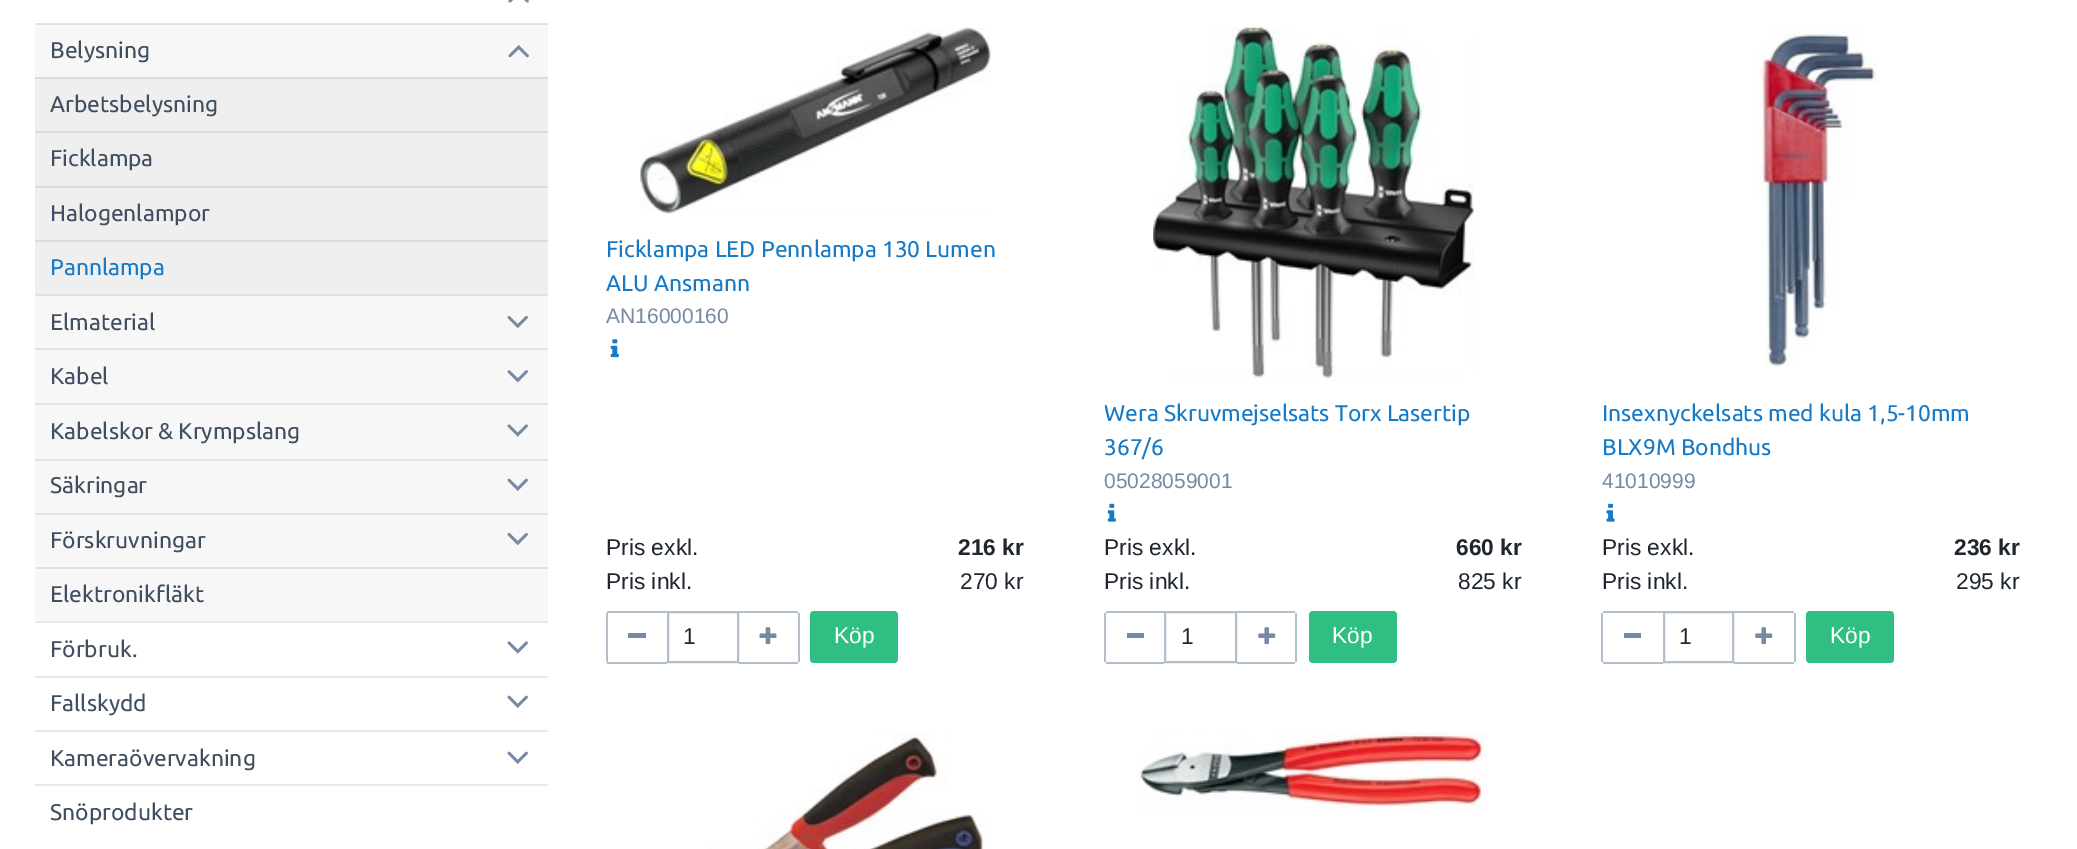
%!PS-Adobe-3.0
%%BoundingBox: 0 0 2077 849
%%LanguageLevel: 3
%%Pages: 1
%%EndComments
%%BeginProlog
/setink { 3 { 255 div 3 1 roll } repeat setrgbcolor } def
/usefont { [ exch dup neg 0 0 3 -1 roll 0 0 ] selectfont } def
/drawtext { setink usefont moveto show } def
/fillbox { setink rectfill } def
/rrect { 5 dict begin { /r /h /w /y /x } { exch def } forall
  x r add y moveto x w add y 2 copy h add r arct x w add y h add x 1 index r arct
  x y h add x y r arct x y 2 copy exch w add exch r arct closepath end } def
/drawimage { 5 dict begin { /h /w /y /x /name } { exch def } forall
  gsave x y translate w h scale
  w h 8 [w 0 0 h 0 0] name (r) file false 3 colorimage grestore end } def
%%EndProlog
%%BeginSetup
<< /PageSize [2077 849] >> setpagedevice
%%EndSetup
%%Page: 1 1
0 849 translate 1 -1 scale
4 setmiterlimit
0 0 2077 849 255 255 255 fillbox
35 621 513 2 233 233 234 fillbox
(assets/img1.rgb) 508 0 21 3 drawimage
35 25 513 596 247 247 247 fillbox
35 23 513 2 225 226 227 fillbox
35 294 513 2 225 226 227 fillbox
(Belysning) 50 58 /Ubuntu-Regular 22.75 63 78 96 drawtext
(assets/img2.rgb) 508 45 21 13 drawimage
35 79 513 215 239 239 239 fillbox
35 77 513 2 218 219 220 fillbox
35 131 513 2 218 219 220 fillbox
(Arbetsbelysning) 50 112 /Ubuntu-Regular 22.75 63 78 96 drawtext
35 186 513 2 218 219 220 fillbox
(Ficklampa) 50 166 /Ubuntu-Regular 22.75 63 78 96 drawtext
35 240 513 2 218 219 220 fillbox
(Halogenlampor) 50 221 /Ubuntu-Regular 22.75 63 78 96 drawtext
(Pannlampa) 50 275 /Ubuntu-Regular 22.75 22 122 198 drawtext
35 348 513 2 225 226 227 fillbox
(Elmaterial) 50 330 /Ubuntu-Regular 22.75 63 78 96 drawtext
(assets/img3.rgb) 507 315 21 14 drawimage
35 403 513 2 225 226 227 fillbox
(Kabel) 50 384 /Ubuntu-Regular 22.75 63 78 96 drawtext
(assets/img4.rgb) 507 370 21 13 drawimage
35 459 513 2 225 226 227 fillbox
(Kabelskor & Krympslang) 50 439 /Ubuntu-Regular 22.75 63 78 96 drawtext
(assets/img5.rgb) 507 424 21 13 drawimage
35 513 513 2 225 226 227 fillbox
(Säkringar) 50 493 /Ubuntu-Regular 22.75 63 78 96 drawtext
(assets/img6.rgb) 507 478 21 13 drawimage
35 567 513 2 225 226 227 fillbox
(Förskruvningar) 50 548 /Ubuntu-Regular 22.75 63 78 96 drawtext
(assets/img3.rgb) 507 532 21 14 drawimage
(Elektronikfläkt) 50 602 /Ubuntu-Regular 22.75 63 78 96 drawtext
35 676 513 2 233 233 234 fillbox
(Förbruk.) 50 657 /Ubuntu-Regular 22.75 63 78 96 drawtext
(assets/img7.rgb) 507 641 21 13 drawimage
35 730 513 2 233 233 234 fillbox
(Fallskydd) 50 711 /Ubuntu-Regular 22.75 63 78 96 drawtext
(assets/img8.rgb) 507 695 21 13 drawimage
35 784 513 2 233 233 234 fillbox
(Kameraövervakning) 50 766 /Ubuntu-Regular 22.75 63 78 96 drawtext
(assets/img8.rgb) 507 751 21 13 drawimage
(Snöprodukter) 50 820 /Ubuntu-Regular 22.75 63 78 96 drawtext
(assets/img9.rgb) 640 27 351 187 drawimage
(Ficklampa LED Pennlampa 130 Lumen) 606 257 /Ubuntu-Regular 22.75 22 122 198 drawtext
(ALU Ansmann) 606 291 /Ubuntu-Regular 22.75 22 122 198 drawtext
(AN16000160) 606 323 /LiberationSans-Regular 21 118 138 164 drawtext
(assets/img10.rgb) 610 339 9 19 drawimage
(Pris exkl.) 606 555 /LiberationSans-Regular 22.75 31 38 47 drawtext
(216 kr) 958 555 /LiberationSans-Bold 22.75 31 38 47 drawtext
(Pris inkl.) 606 589 /LiberationSans-Regular 22.75 31 38 47 drawtext
(270 kr) 960 589 /LiberationSans-Regular 22.75 31 38 47 drawtext
607 611 60 2 179 190 205 fillbox
607 662 60 2 179 190 205 fillbox
606 613 2 49 179 190 205 fillbox
628 633 18 5 118 138 164 fillbox
179 190 205 setink
2 setlinewidth
668 612 70 50 rectstroke
(1) 683 644 /LiberationSans-Regular 22.75 31 38 47 drawtext
739 611 59 2 179 190 205 fillbox
798 613 2 49 179 190 205 fillbox
739 662 59 2 179 190 205 fillbox
(assets/img11.rgb) 759 627 18 18 drawimage
47 191 131 setink
810 611 88 52 4 rrect fill
(Köp) 834 643 /LiberationSans-Regular 22.75 255 255 255 drawtext
(assets/img12.rgb) 1153 27 321 351 drawimage
(Wera Skruvmejselsats Torx Lasertip) 1104 421 /Ubuntu-Regular 22.75 22 122 198 drawtext
(367/6) 1104 455 /Ubuntu-Regular 22.75 22 122 198 drawtext
(05028059001) 1104 488 /LiberationSans-Regular 21 118 138 164 drawtext
(assets/img13.rgb) 1107 503 9 19 drawimage
(Pris exkl.) 1104 555 /LiberationSans-Regular 22.75 31 38 47 drawtext
(660 kr) 1456 555 /LiberationSans-Bold 22.75 31 38 47 drawtext
(Pris inkl.) 1104 589 /LiberationSans-Regular 22.75 31 38 47 drawtext
(825 kr) 1458 589 /LiberationSans-Regular 22.75 31 38 47 drawtext
1106 611 58 2 179 190 205 fillbox
1106 662 58 2 179 190 205 fillbox
1104 613 2 49 179 190 205 fillbox
1127 633 17 5 118 138 164 fillbox
179 190 205 setink
1165 612 71 50 rectstroke
(1) 1181 644 /LiberationSans-Regular 22.75 31 38 47 drawtext
1237 611 58 2 179 190 205 fillbox
1295 613 2 49 179 190 205 fillbox
1237 662 58 2 179 190 205 fillbox
(assets/img14.rgb) 1258 627 18 18 drawimage
47 191 131 setink
1309 611 88 52 4 rrect fill
(Köp) 1332 643 /LiberationSans-Regular 22.75 255 255 255 drawtext
(assets/img15.rgb) 1752 28 126 339 drawimage
(Insexnyckelsats med kula 1,5-10mm) 1602 421 /Ubuntu-Regular 22.75 22 122 198 drawtext
(BLX9M Bondhus) 1602 455 /Ubuntu-Regular 22.75 22 122 198 drawtext
(41010999) 1602 488 /LiberationSans-Regular 21 118 138 164 drawtext
(assets/img16.rgb) 1606 503 9 19 drawimage
(Pris exkl.) 1602 555 /LiberationSans-Regular 22.75 31 38 47 drawtext
(236 kr) 1954 555 /LiberationSans-Bold 22.75 31 38 47 drawtext
(Pris inkl.) 1602 589 /LiberationSans-Regular 22.75 31 38 47 drawtext
(295 kr) 1956 589 /LiberationSans-Regular 22.75 31 38 47 drawtext
1603 611 60 2 179 190 205 fillbox
1603 662 60 2 179 190 205 fillbox
1601 613 2 49 179 190 205 fillbox
1624 633 17 5 118 138 164 fillbox
179 190 205 setink
1664 612 69 50 rectstroke
(1) 1679 644 /LiberationSans-Regular 22.75 31 38 47 drawtext
1734 611 60 2 179 190 205 fillbox
1794 613 2 49 179 190 205 fillbox
1734 662 60 2 179 190 205 fillbox
(assets/img14.rgb) 1755 627 18 18 drawimage
47 191 131 setink
1806 611 88 52 4 rrect fill
(Köp) 1830 643 /LiberationSans-Regular 22.75 255 255 255 drawtext
(assets/img17.rgb) 709 731 276 118 drawimage
(assets/img18.rgb) 1137 731 351 81 drawimage
showpage
%%EOF
